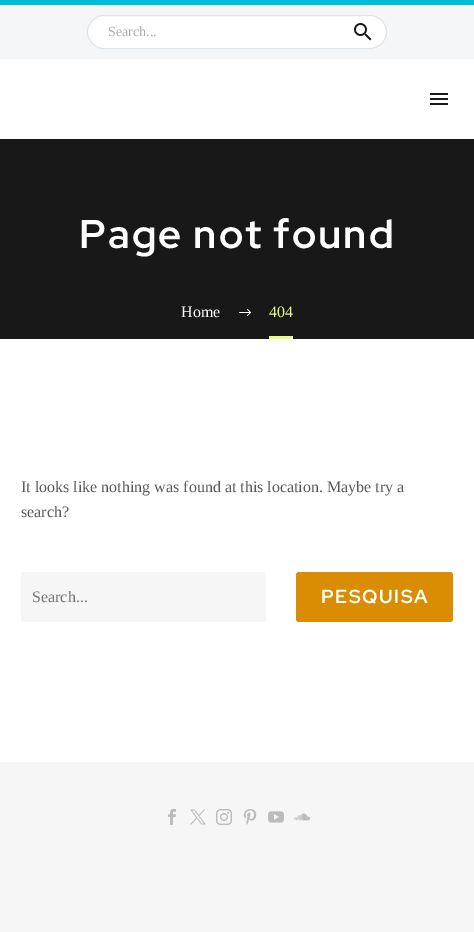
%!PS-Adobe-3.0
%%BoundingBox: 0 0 474 932
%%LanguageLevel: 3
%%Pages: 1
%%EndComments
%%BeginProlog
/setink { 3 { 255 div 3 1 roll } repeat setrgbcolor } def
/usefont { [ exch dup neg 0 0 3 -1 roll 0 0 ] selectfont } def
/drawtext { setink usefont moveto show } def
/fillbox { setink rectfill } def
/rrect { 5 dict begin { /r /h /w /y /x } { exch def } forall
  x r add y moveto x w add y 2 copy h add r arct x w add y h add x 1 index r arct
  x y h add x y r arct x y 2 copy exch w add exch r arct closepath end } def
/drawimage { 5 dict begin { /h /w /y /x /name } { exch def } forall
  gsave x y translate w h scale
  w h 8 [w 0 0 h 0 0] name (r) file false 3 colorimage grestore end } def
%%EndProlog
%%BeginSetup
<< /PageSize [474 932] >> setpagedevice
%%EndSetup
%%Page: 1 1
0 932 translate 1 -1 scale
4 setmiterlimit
0 0 474 932 255 255 255 fillbox
0 5 474 54 244 246 247 fillbox
0 0 474 5 0 188 212 fillbox
255 255 255 setink
87.5 15.5 299 33 16.5 rrect gsave fill grestore
223 229 232 setink
stroke
(Search...) 108 36 /LiberationSerif-Regular 14 173 173 173 drawtext
(assets/img1.rgb) 354 23 18 18 drawimage
430 93 18 2 24 24 24 fillbox
430 98 18 2 24 24 24 fillbox
430 103 18 2 24 24 24 fillbox
0 139 474 200 24 24 24 fillbox
/RedHatDisplay-Bold 40 usefont
255 255 255 setink
79 248 moveto 2 0 (Page not found) ashow
(Home) 181 317 /LiberationSerif-Regular 16 255 255 255 drawtext
(assets/img2.rgb) 239 309 12 7 drawimage
269 336 24 3 231 255 137 fillbox
(404) 269 317 /LiberationSerif-Regular 16 231 255 137 drawtext
(It looks like nothing was found at this location. Maybe try a) 21 492 /LiberationSerif-Regular 16 91 90 90 drawtext
(search?) 21 517 /LiberationSerif-Regular 16 91 90 90 drawtext
246 246 246 setink
21 572 245 50 3 rrect fill
(Search...) 32 602 /LiberationSerif-Regular 16 117 117 117 drawtext
218 141 0 setink
296 572 157 50 3 rrect fill
/RedHatDisplay-Bold 19 usefont
255 255 255 setink
321 603 moveto 1.5 0 (PESQUISA) ashow
0 762 474 170 246 246 246 fillbox
(assets/img3.rgb) 168 809 8 16 drawimage
(assets/img4.rgb) 190 809 16 16 drawimage
(assets/img5.rgb) 216 809 16 16 drawimage
(assets/img6.rgb) 243 809 14 16 drawimage
(assets/img7.rgb) 268 811 16 12 drawimage
(assets/img8.rgb) 294 813 16 8 drawimage
showpage
%%EOF
